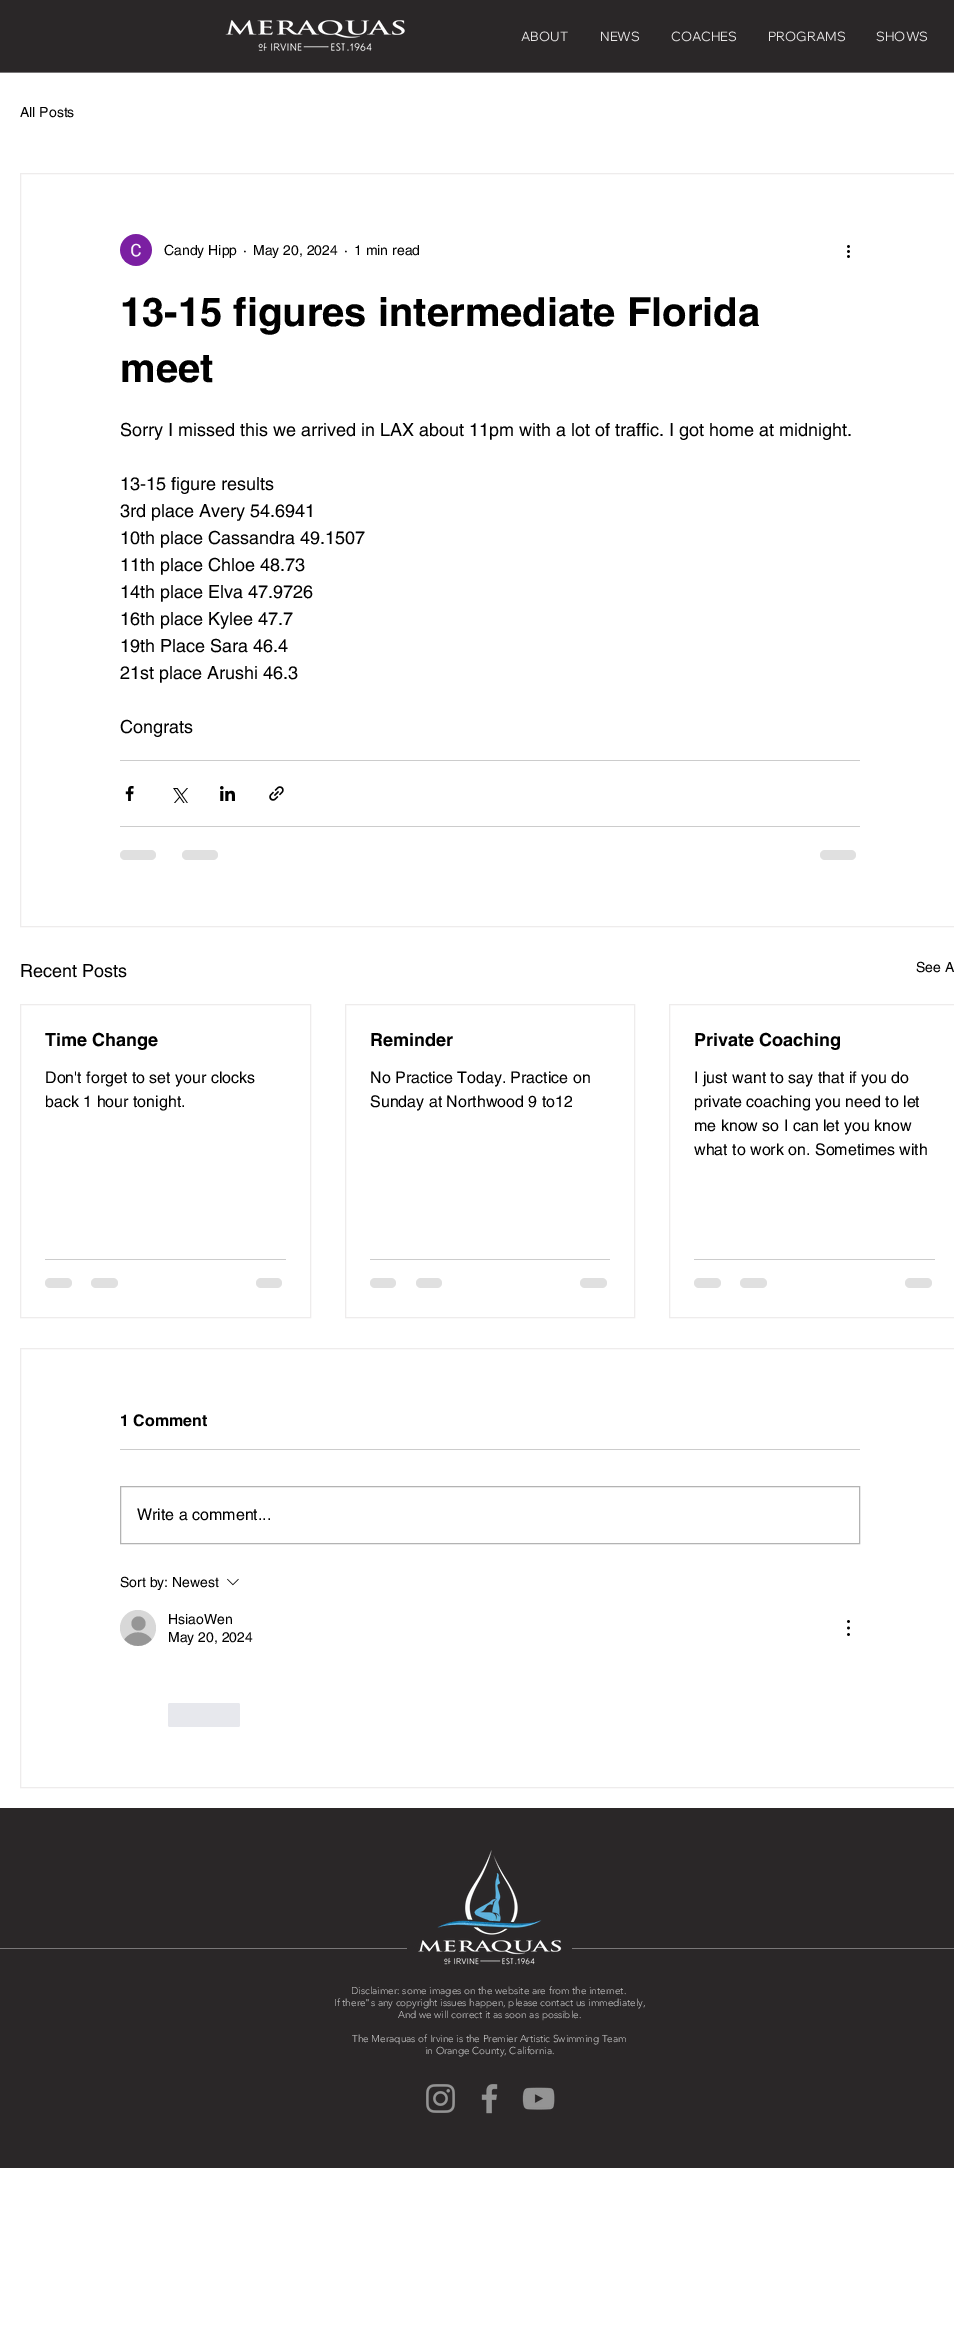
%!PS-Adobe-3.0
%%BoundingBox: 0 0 954 2333
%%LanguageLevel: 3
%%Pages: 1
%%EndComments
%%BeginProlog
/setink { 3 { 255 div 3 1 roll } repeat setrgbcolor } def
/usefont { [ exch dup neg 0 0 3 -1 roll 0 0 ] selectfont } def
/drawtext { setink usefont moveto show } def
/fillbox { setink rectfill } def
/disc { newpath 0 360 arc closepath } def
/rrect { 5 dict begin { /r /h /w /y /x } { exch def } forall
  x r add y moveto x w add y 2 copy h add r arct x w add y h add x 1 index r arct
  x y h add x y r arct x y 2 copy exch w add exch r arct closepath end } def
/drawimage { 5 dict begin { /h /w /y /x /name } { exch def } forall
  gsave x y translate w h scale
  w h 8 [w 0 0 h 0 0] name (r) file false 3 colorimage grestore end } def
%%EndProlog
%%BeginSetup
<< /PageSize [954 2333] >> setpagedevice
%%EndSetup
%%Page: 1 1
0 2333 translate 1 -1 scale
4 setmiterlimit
0 0 954 2333 255 255 255 fillbox
0 0 954 72 42 39 40 fillbox
(assets/img1.rgb) 225 20 180 32 drawimage
(ABOUT) 521 41 /WixMadeforDisplay-Regular 13 232 230 230 drawtext
(NEWS) 600 41 /WixMadeforDisplay-Regular 13 232 230 230 drawtext
(COACHES) 671 41 /WixMadeforDisplay-Regular 13 232 230 230 drawtext
(PROGRAMS) 768 41 /WixMadeforDisplay-Regular 13 232 230 230 drawtext
(SHOWS) 876 41 /WixMadeforDisplay-Regular 13 232 230 230 drawtext
0 72 954 1 121 119 120 fillbox
(All Posts) 20 117 /helvetica-Regular 14 0 0 0 drawtext
238 236 236 setink
20.5 173.5 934 753 rectstroke
(assets/img2.rgb) 120 234 32 32 drawimage
(Candy Hipp) 164 255 /helvetica-Regular 14 0 0 0 drawtext
(·) 243 255 /helvetica-Regular 14 0 0 0 drawtext
(May 20, 2024) 253 255 /helvetica-Regular 14 0 0 0 drawtext
(·) 344 255 /helvetica-Regular 14 0 0 0 drawtext
(1 min read) 354 255 /helvetica-Regular 14 0 0 0 drawtext
(assets/img3.rgb) 847 245 3 13 drawimage
(13-15 figures intermediate Florida) 120 326 /helvetica-Bold 40 0 0 0 drawtext
(meet) 120 382 /helvetica-Bold 40 0 0 0 drawtext
(Sorry I missed this we arrived in LAX about 11pm with a lot of traffic. I got home at midnight.) 120 436 /helvetica-Regular 18 0 0 0 drawtext
(13-15 figure results) 120 490 /helvetica-Regular 18 0 0 0 drawtext
(3rd place Avery 54.6941) 120 517 /helvetica-Regular 18 0 0 0 drawtext
(10th place Cassandra 49.1507) 120 544 /helvetica-Regular 18 0 0 0 drawtext
(11th place Chloe 48.73) 120 571 /helvetica-Regular 18 0 0 0 drawtext
(14th place Elva 47.9726) 120 598 /helvetica-Regular 18 0 0 0 drawtext
(16th place Kylee 47.7) 120 625 /helvetica-Regular 18 0 0 0 drawtext
(19th Place Sara 46.4) 120 652 /helvetica-Regular 18 0 0 0 drawtext
(21st place Arushi 46.3) 120 679 /helvetica-Regular 18 0 0 0 drawtext
(Congrats) 120 733 /helvetica-Regular 18 0 0 0 drawtext
120 760 740 1 204 204 204 fillbox
(assets/img4.rgb) 125 786 9 15 drawimage
(assets/img5.rgb) 173 788 15 15 drawimage
(assets/img6.rgb) 220 786 15 15 drawimage
(assets/img7.rgb) 269 786 15 15 drawimage
120 826 740 1 204 204 204 fillbox
224 224 224 setink
120 850 36 10 5 rrect fill
182 850 36 10 5 rrect fill
820 850 36 10 5 rrect fill
(Recent Posts) 20 977 /helvetica-Regular 18 0 0 0 drawtext
(See A) 916 972 /helvetica-Regular 14 0 0 0 drawtext
238 236 236 setink
20.5 1004.5 290 313 rectstroke
(Time Change) 45 1046 /helvetica-Bold 18 0 0 0 drawtext
(Don't forget to set your clocks) 45 1083 /helvetica-Regular 16 0 0 0 drawtext
(back 1 hour tonight.) 45 1107 /helvetica-Regular 16 0 0 0 drawtext
45 1259 241 1 204 204 204 fillbox
224 224 224 setink
45 1278 27 10 5 rrect fill
91 1278 27 10 5 rrect fill
256 1278 26 10 5 rrect fill
238 236 236 setink
345.5 1004.5 289 313 rectstroke
(Reminder) 370 1046 /helvetica-Bold 18 0 0 0 drawtext
(No Practice Today. Practice on) 370 1083 /helvetica-Regular 16 0 0 0 drawtext
(Sunday at Northwood 9 to12) 370 1107 /helvetica-Regular 16 0 0 0 drawtext
370 1259 240 1 204 204 204 fillbox
224 224 224 setink
370 1278 26 10 5 rrect fill
416 1278 26 10 5 rrect fill
580 1278 27 10 5 rrect fill
238 236 236 setink
669.5 1004.5 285 313 rectstroke
(Private Coaching) 694 1046 /helvetica-Bold 18 0 0 0 drawtext
(I just want to say that if you do) 694 1083 /helvetica-Regular 16 0 0 0 drawtext
(private coaching you need to let) 694 1107 /helvetica-Regular 16 0 0 0 drawtext
(me know so I can let you know) 694 1131 /helvetica-Regular 16 0 0 0 drawtext
(what to work on. Sometimes with) 694 1155 /helvetica-Regular 16 0 0 0 drawtext
694 1259 241 1 204 204 204 fillbox
224 224 224 setink
694 1278 27 10 5 rrect fill
740 1278 27 10 5 rrect fill
905 1278 27 10 5 rrect fill
238 236 236 setink
20.5 1348.5 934 439 rectstroke
(1 Comment) 120 1426 /helvetica-Bold 16 0 0 0 drawtext
120 1449 740 1 204 204 204 fillbox
179 179 179 setink
120.5 1486.5 739 57 rectstroke
(Write a comment...) 137 1520 /helvetica-Regular 16 0 0 0 drawtext
(Sort by: Newest) 120 1587 /helvetica-Regular 14 0 0 0 drawtext
(assets/img8.rgb) 227 1578 12 8 drawimage
216 216 216 setink
138 1628 18 disc fill
150 150 150 setink
138.5 1623.5 7 disc fill
151.5 1639.5 moveto 144.5 1648 131.5 1648 124.5 1639.5 curveto 130.5 1630 145.5 1630 151.5 1639.5 curveto closepath fill
(HsiaoWen) 168 1624 /helvetica-Regular 14 0 0 0 drawtext
(May 20, 2024) 168 1642 /helvetica-Regular 14 0 0 0 drawtext
(assets/img9.rgb) 847 1620 3 16 drawimage
231 232 237 setink
168 1703 72 24 2 rrect fill
0 1808 954 360 42 39 40 fillbox
0 1948 954 1 121 119 120 fillbox
407 1948 165 1 42 39 40 fillbox
(assets/img10.rgb) 418 1850 144 115 drawimage
(Disclaimer: some images on the website are from the internet.) 351 1994 /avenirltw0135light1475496-Light 10 199 199 199 drawtext
(If there"s any copyright issues happen, please contact us immediately,) 334 2006 /avenirltw0135light1475496-Light 10 199 199 199 drawtext
(And we will correct it as soon as possible.) 398 2018 /avenirltw0135light1475496-Light 10 199 199 199 drawtext
(The Meraquas of Irvine is the Premier Artistic Swimming Team) 352 2042 /avenirltw0135light1475496-Light 10 199 199 199 drawtext
(in Orange County, California.) 425 2054 /avenirltw0135light1475496-Light 10 199 199 199 drawtext
(assets/img11.rgb) 426 2084 29 29 drawimage
(assets/img12.rgb) 481 2084 17 30 drawimage
(assets/img13.rgb) 522 2087 33 23 drawimage
showpage
%%EOF
